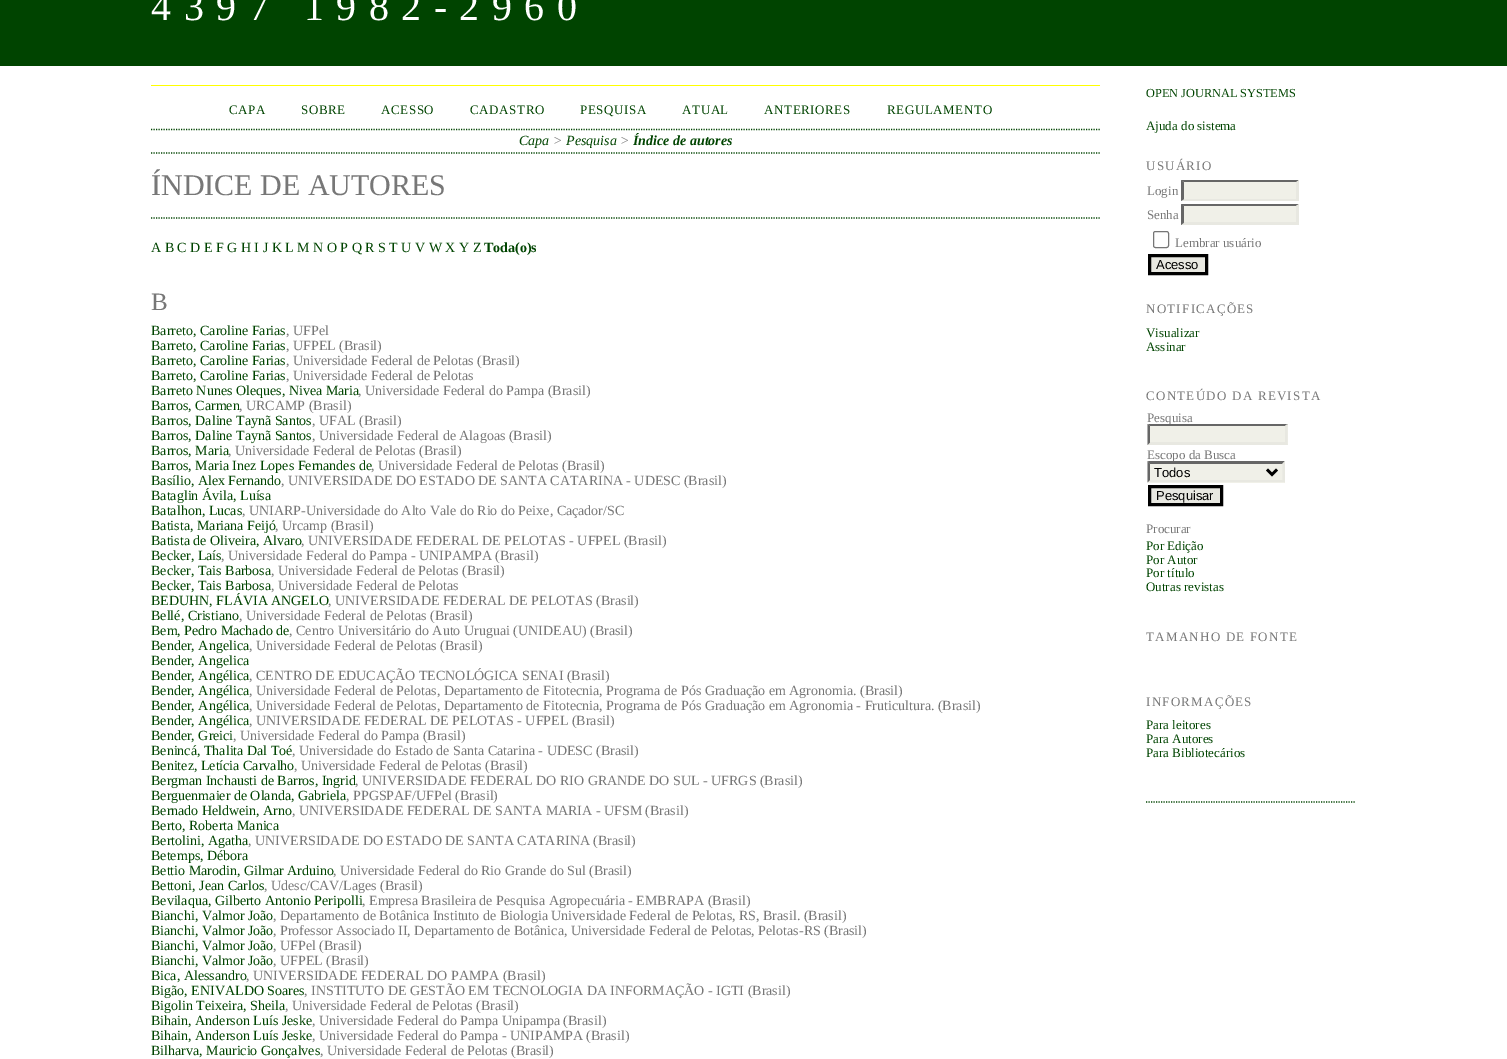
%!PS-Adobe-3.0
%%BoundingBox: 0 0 1507 1059
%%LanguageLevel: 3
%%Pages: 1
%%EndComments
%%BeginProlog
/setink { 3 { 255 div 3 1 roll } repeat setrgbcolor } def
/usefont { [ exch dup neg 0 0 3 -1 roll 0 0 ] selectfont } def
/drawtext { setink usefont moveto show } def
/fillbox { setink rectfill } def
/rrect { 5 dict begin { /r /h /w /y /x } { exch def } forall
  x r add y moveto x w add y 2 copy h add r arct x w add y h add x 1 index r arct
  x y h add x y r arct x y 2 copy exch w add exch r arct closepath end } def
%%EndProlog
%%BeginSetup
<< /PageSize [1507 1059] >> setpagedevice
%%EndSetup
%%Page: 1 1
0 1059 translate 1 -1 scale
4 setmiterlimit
0 0 1507 1059 255 255 255 fillbox
0 0 1507 66 0 68 0 fillbox
/LiberationSerif-Regular 40 usefont
255 255 255 setink
151 20 moveto 12.5 0 (4397 1982-2960) ashow
151 85 949 1 255 255 0 fillbox
0 68 0 setink
1.2 setlinewidth
[1.25 1.25] 0 setdash
151 129.5 moveto 1100 129.5 lineto stroke
/LiberationSerif-Regular 13 usefont
229 114 moveto 0.6 0 (CAPA) ashow
301 114 moveto 0.6 0 (SOBRE) ashow
381 114 moveto 0.6 0 (ACESSO) ashow
470 114 moveto 0.6 0 (CADASTRO) ashow
580 114 moveto 0.6 0 (PESQUISA) ashow
682 114 moveto 0.6 0 (ATUAL) ashow
764 114 moveto 0.6 0 (ANTERIORES) ashow
887 114 moveto 0.6 0 (REGULAMENTO) ashow
151 153 moveto 1100 153 lineto stroke
(Capa) 519 145 /LiberationSerif-Italic 14 0 68 0 drawtext
(>) 553 145 /LiberationSerif-Italic 14 119 119 119 drawtext
(Pesquisa) 566 145 /LiberationSerif-Italic 14 0 68 0 drawtext
(>) 620 145 /LiberationSerif-Italic 14 119 119 119 drawtext
(Índice de autores) 633 145 /LiberationSerif-BoldItalic 14 0 68 0 drawtext
(ÍNDICE DE AUTORES) 151 195 /LiberationSerif-Regular 30 119 119 119 drawtext
0 68 0 setink
151 218 moveto 1100 218 lineto stroke
(A B C D E F G H I J K L M N O P Q R S T U V W X Y Z) 151 252 /LiberationSerif-Regular 14 0 68 0 drawtext
(Toda\(o\)s) 484 252 /LiberationSerif-Bold 14 0 68 0 drawtext
(B) 151 310 /LiberationSerif-Regular 25 119 119 119 drawtext
(Barreto, Caroline Farias) 151 335 /LiberationSerif-Regular 14 0 68 0 drawtext
(, UFPel) 286 335 /LiberationSerif-Regular 14 119 119 119 drawtext
(Barreto, Caroline Farias) 151 350 /LiberationSerif-Regular 14 0 68 0 drawtext
(, UFPEL \(Brasil\)) 286 350 /LiberationSerif-Regular 14 119 119 119 drawtext
(Barreto, Caroline Farias) 151 365 /LiberationSerif-Regular 14 0 68 0 drawtext
(, Universidade Federal de Pelotas \(Brasil\)) 286 365 /LiberationSerif-Regular 14 119 119 119 drawtext
(Barreto, Caroline Farias) 151 380 /LiberationSerif-Regular 14 0 68 0 drawtext
(, Universidade Federal de Pelotas) 286 380 /LiberationSerif-Regular 14 119 119 119 drawtext
(Barreto Nunes Oleques, Nivea Maria) 151 395 /LiberationSerif-Regular 14 0 68 0 drawtext
(, Universidade Federal do Pampa \(Brasil\)) 358 395 /LiberationSerif-Regular 14 119 119 119 drawtext
(Barros, Carmen) 151 410 /LiberationSerif-Regular 14 0 68 0 drawtext
(, URCAMP \(Brasil\)) 239 410 /LiberationSerif-Regular 14 119 119 119 drawtext
(Barros, Daline Taynã Santos) 151 425 /LiberationSerif-Regular 14 0 68 0 drawtext
(, UFAL \(Brasil\)) 312 425 /LiberationSerif-Regular 14 119 119 119 drawtext
(Barros, Daline Taynã Santos) 151 440 /LiberationSerif-Regular 14 0 68 0 drawtext
(, Universidade Federal de Alagoas \(Brasil\)) 312 440 /LiberationSerif-Regular 14 119 119 119 drawtext
(Barros, Maria) 151 455 /LiberationSerif-Regular 14 0 68 0 drawtext
(, Universidade Federal de Pelotas \(Brasil\)) 228 455 /LiberationSerif-Regular 14 119 119 119 drawtext
(Barros, Maria Inez Lopes Fernandes de) 151 470 /LiberationSerif-Regular 14 0 68 0 drawtext
(, Universidade Federal de Pelotas \(Brasil\)) 371 470 /LiberationSerif-Regular 14 119 119 119 drawtext
(Basílio, Alex Fernando) 151 485 /LiberationSerif-Regular 14 0 68 0 drawtext
(, UNIVERSIDADE DO ESTADO DE SANTA CATARINA - UDESC \(Brasil\)) 281 485 /LiberationSerif-Regular 14 119 119 119 drawtext
(Bataglin Ávila, Luísa) 151 500 /LiberationSerif-Regular 14 0 68 0 drawtext
(Batalhon, Lucas) 151 515 /LiberationSerif-Regular 14 0 68 0 drawtext
(, UNIARP-Universidade do Alto Vale do Rio do Peixe, Caçador/SC) 242 515 /LiberationSerif-Regular 14 119 119 119 drawtext
(Batista, Mariana Feijó) 151 530 /LiberationSerif-Regular 14 0 68 0 drawtext
(, Urcamp \(Brasil\)) 275 530 /LiberationSerif-Regular 14 119 119 119 drawtext
(Batista de Oliveira, Alvaro) 151 545 /LiberationSerif-Regular 14 0 68 0 drawtext
(, UNIVERSIDADE FEDERAL DE PELOTAS - UFPEL \(Brasil\)) 301 545 /LiberationSerif-Regular 14 119 119 119 drawtext
(Becker, Laís) 151 560 /LiberationSerif-Regular 14 0 68 0 drawtext
(, Universidade Federal do Pampa - UNIPAMPA \(Brasil\)) 221 560 /LiberationSerif-Regular 14 119 119 119 drawtext
(Becker, Tais Barbosa) 151 575 /LiberationSerif-Regular 14 0 68 0 drawtext
(, Universidade Federal de Pelotas \(Brasil\)) 271 575 /LiberationSerif-Regular 14 119 119 119 drawtext
(Becker, Tais Barbosa) 151 590 /LiberationSerif-Regular 14 0 68 0 drawtext
(, Universidade Federal de Pelotas) 271 590 /LiberationSerif-Regular 14 119 119 119 drawtext
(BEDUHN, FLÁVIA ANGELO) 151 605 /LiberationSerif-Regular 14 0 68 0 drawtext
(, UNIVERSIDADE FEDERAL DE PELOTAS \(Brasil\)) 328 605 /LiberationSerif-Regular 14 119 119 119 drawtext
(Bellé, Cristiano) 151 620 /LiberationSerif-Regular 14 0 68 0 drawtext
(, Universidade Federal de Pelotas \(Brasil\)) 239 620 /LiberationSerif-Regular 14 119 119 119 drawtext
(Bem, Pedro Machado de) 151 635 /LiberationSerif-Regular 14 0 68 0 drawtext
(, Centro Universitário do Auto Uruguai \(UNIDEAU\) \(Brasil\)) 289 635 /LiberationSerif-Regular 14 119 119 119 drawtext
(Bender, Angelica) 151 650 /LiberationSerif-Regular 14 0 68 0 drawtext
(, Universidade Federal de Pelotas \(Brasil\)) 249 650 /LiberationSerif-Regular 14 119 119 119 drawtext
(Bender, Angelica) 151 665 /LiberationSerif-Regular 14 0 68 0 drawtext
(Bender, Angélica) 151 680 /LiberationSerif-Regular 14 0 68 0 drawtext
(, CENTRO DE EDUCAÇÃO TECNOLÓGICA SENAI \(Brasil\)) 249 680 /LiberationSerif-Regular 14 119 119 119 drawtext
(Bender, Angélica) 151 695 /LiberationSerif-Regular 14 0 68 0 drawtext
(, Universidade Federal de Pelotas, Departamento de Fitotecnia, Programa de Pós Graduação em Agronomia. \(Brasil\)) 249 695 /LiberationSerif-Regular 14 119 119 119 drawtext
(Bender, Angélica) 151 710 /LiberationSerif-Regular 14 0 68 0 drawtext
(, Universidade Federal de Pelotas, Departamento de Fitotecnia, Programa de Pós Graduação em Agronomia - Fruticultura. \(Brasil\)) 249 710 /LiberationSerif-Regular 14 119 119 119 drawtext
(Bender, Angélica) 151 725 /LiberationSerif-Regular 14 0 68 0 drawtext
(, UNIVERSIDADE FEDERAL DE PELOTAS - UFPEL \(Brasil\)) 249 725 /LiberationSerif-Regular 14 119 119 119 drawtext
(Bender, Greici) 151 740 /LiberationSerif-Regular 14 0 68 0 drawtext
(, Universidade Federal do Pampa \(Brasil\)) 233 740 /LiberationSerif-Regular 14 119 119 119 drawtext
(Benincá, Thalita Dal Toé) 151 755 /LiberationSerif-Regular 14 0 68 0 drawtext
(, Universidade do Estado de Santa Catarina - UDESC \(Brasil\)) 292 755 /LiberationSerif-Regular 14 119 119 119 drawtext
(Benitez, Letícia Carvalho) 151 770 /LiberationSerif-Regular 14 0 68 0 drawtext
(, Universidade Federal de Pelotas \(Brasil\)) 294 770 /LiberationSerif-Regular 14 119 119 119 drawtext
(Bergman Inchausti de Barros, Ingrid) 151 785 /LiberationSerif-Regular 14 0 68 0 drawtext
(, UNIVERSIDADE FEDERAL DO RIO GRANDE DO SUL - UFRGS \(Brasil\)) 355 785 /LiberationSerif-Regular 14 119 119 119 drawtext
(Berguenmaier de Olanda, Gabriela) 151 800 /LiberationSerif-Regular 14 0 68 0 drawtext
(, PPGSPAF/UFPel \(Brasil\)) 346 800 /LiberationSerif-Regular 14 119 119 119 drawtext
(Bernado Heldwein, Arno) 151 815 /LiberationSerif-Regular 14 0 68 0 drawtext
(, UNIVERSIDADE FEDERAL DE SANTA MARIA - UFSM \(Brasil\)) 292 815 /LiberationSerif-Regular 14 119 119 119 drawtext
(Berto, Roberta Manica) 151 830 /LiberationSerif-Regular 14 0 68 0 drawtext
(Bertolini, Agatha) 151 845 /LiberationSerif-Regular 14 0 68 0 drawtext
(, UNIVERSIDADE DO ESTADO DE SANTA CATARINA \(Brasil\)) 248 845 /LiberationSerif-Regular 14 119 119 119 drawtext
(Betemps, Débora) 151 860 /LiberationSerif-Regular 14 0 68 0 drawtext
(Bettio Marodin, Gilmar Arduino) 151 875 /LiberationSerif-Regular 14 0 68 0 drawtext
(, Universidade Federal do Rio Grande do Sul \(Brasil\)) 333 875 /LiberationSerif-Regular 14 119 119 119 drawtext
(Bettoni, Jean Carlos) 151 890 /LiberationSerif-Regular 14 0 68 0 drawtext
(, Udesc/CAV/Lages \(Brasil\)) 264 890 /LiberationSerif-Regular 14 119 119 119 drawtext
(Bevilaqua, Gilberto Antonio Peripolli) 151 905 /LiberationSerif-Regular 14 0 68 0 drawtext
(, Empresa Brasileira de Pesquisa Agropecuária - EMBRAPA \(Brasil\)) 362 905 /LiberationSerif-Regular 14 119 119 119 drawtext
(Bianchi, Valmor João) 151 920 /LiberationSerif-Regular 14 0 68 0 drawtext
(, Departamento de Botânica Instituto de Biologia Universidade Federal de Pelotas, RS, Brasil. \(Brasil\)) 273 920 /LiberationSerif-Regular 14 119 119 119 drawtext
(Bianchi, Valmor João) 151 935 /LiberationSerif-Regular 14 0 68 0 drawtext
(, Professor Associado II, Departamento de Botânica, Universidade Federal de Pelotas, Pelotas-RS \(Brasil\)) 273 935 /LiberationSerif-Regular 14 119 119 119 drawtext
(Bianchi, Valmor João) 151 950 /LiberationSerif-Regular 14 0 68 0 drawtext
(, UFPel \(Brasil\)) 273 950 /LiberationSerif-Regular 14 119 119 119 drawtext
(Bianchi, Valmor João) 151 965 /LiberationSerif-Regular 14 0 68 0 drawtext
(, UFPEL \(Brasil\)) 273 965 /LiberationSerif-Regular 14 119 119 119 drawtext
(Bica, Alessandro) 151 980 /LiberationSerif-Regular 14 0 68 0 drawtext
(, UNIVERSIDADE FEDERAL DO PAMPA \(Brasil\)) 246 980 /LiberationSerif-Regular 14 119 119 119 drawtext
(Bigão, ENIVALDO Soares) 151 995 /LiberationSerif-Regular 14 0 68 0 drawtext
(, INSTITUTO DE GESTÃO EM TECNOLOGIA DA INFORMAÇÃO - IGTI \(Brasil\)) 304 995 /LiberationSerif-Regular 14 119 119 119 drawtext
(Bigolin Teixeira, Sheila) 151 1010 /LiberationSerif-Regular 14 0 68 0 drawtext
(, Universidade Federal de Pelotas \(Brasil\)) 285 1010 /LiberationSerif-Regular 14 119 119 119 drawtext
(Bihain, Anderson Luís Jeske) 151 1025 /LiberationSerif-Regular 14 0 68 0 drawtext
(, Universidade Federal do Pampa Unipampa \(Brasil\)) 312 1025 /LiberationSerif-Regular 14 119 119 119 drawtext
(Bihain, Anderson Luís Jeske) 151 1040 /LiberationSerif-Regular 14 0 68 0 drawtext
(, Universidade Federal do Pampa - UNIPAMPA \(Brasil\)) 312 1040 /LiberationSerif-Regular 14 119 119 119 drawtext
(Bilharva, Mauricio Gonçalves) 151 1055 /LiberationSerif-Regular 14 0 68 0 drawtext
(, Universidade Federal de Pelotas \(Brasil\)) 320 1055 /LiberationSerif-Regular 14 119 119 119 drawtext
0 68 0 setink
1146 802 moveto 1356 802 lineto stroke
(OPEN JOURNAL SYSTEMS) 1146 97 /LiberationSerif-Regular 12.3 0 68 0 drawtext
(Ajuda do sistema) 1146 130 /LiberationSerif-Regular 13 0 68 0 drawtext
119 119 119 setink
1146 170 moveto 1.25 0 (USUÁRIO) ashow
(Login) 1147 195 /LiberationSerif-Regular 13 119 119 119 drawtext
1181 180 118 21 240 240 232 fillbox
102 102 102 setink
1181 180 moveto 1299 180 lineto 1296 182 lineto 1184 182 lineto closepath fill
232 232 225 setink
1299 180 moveto 1299 201 lineto 1296 199 lineto 1296 182.5 lineto closepath fill
1299 201 moveto 1181 201 lineto 1184 199 lineto 1296 199 lineto closepath fill
102 102 102 setink
1181 201 moveto 1181 180 lineto 1184 182.5 lineto 1184 199 lineto closepath fill
(Senha) 1147 219 /LiberationSerif-Regular 13 119 119 119 drawtext
1181 204 118 21 240 240 232 fillbox
102 102 102 setink
1181 204 moveto 1299 204 lineto 1296 206 lineto 1184 206 lineto closepath fill
232 232 225 setink
1299 204 moveto 1299 225 lineto 1296 222.5 lineto 1296 206 lineto closepath fill
1299 225 moveto 1181 225 lineto 1184 222 lineto 1296 222 lineto closepath fill
102 102 102 setink
1181 225 moveto 1181 204 lineto 1184 206 lineto 1184 222.5 lineto closepath fill
118 118 118 setink
1 setlinewidth
[] 0 setdash
1153.5 231.5 15 16 2 rrect stroke
(Lembrar usuário) 1175 247 /LiberationSerif-Regular 13 119 119 119 drawtext
232 232 225 setink
1149.5 255.5 moveto 1206.5 255.5 lineto 1206.5 273.5 lineto 1149.5 273.5 lineto closepath gsave fill grestore
0 0 0 setink
3 setlinewidth
stroke
(Acesso) 1156 269 /LiberationSans-Regular 13 0 0 0 drawtext
/LiberationSerif-Regular 13 usefont
119 119 119 setink
1146 313 moveto 1.25 0 (NOTIFICAÇÕES) ashow
(Visualizar) 1146 337 /LiberationSerif-Regular 13 0 68 0 drawtext
(Assinar) 1146 351 /LiberationSerif-Regular 13 0 68 0 drawtext
119 119 119 setink
1146 400 moveto 1.25 0 (CONTEÚDO DA REVISTA) ashow
(Pesquisa) 1147 422 /LiberationSerif-Regular 13 119 119 119 drawtext
1148 424 140 21 240 240 232 fillbox
102 102 102 setink
1148 424 moveto 1288 424 lineto 1285 426 lineto 1150 426 lineto closepath fill
232 232 225 setink
1287.5 424 moveto 1287.5 445 lineto 1285 442.5 lineto 1285 426 lineto closepath fill
1288 445 moveto 1148 445 lineto 1150 442 lineto 1285 442 lineto closepath fill
102 102 102 setink
1147.5 445 moveto 1147.5 424 lineto 1150 426 lineto 1150 442.5 lineto closepath fill
(Escopo da Busca) 1147 459 /LiberationSerif-Regular 13 119 119 119 drawtext
1148 461 137 22 240 240 232 fillbox
102 102 102 setink
1148 461 moveto 1285 461 lineto 1282 464 lineto 1150 464 lineto closepath fill
232 232 225 setink
1285 461 moveto 1285 482.5 lineto 1282.5 480 lineto 1282.5 464 lineto closepath fill
1285 482 moveto 1148 482 lineto 1150 480 lineto 1282 480 lineto closepath fill
102 102 102 setink
1147.5 482.5 moveto 1147.5 461 lineto 1150 464 lineto 1150 480 lineto closepath fill
0 0 0 setink
2.5 setlinewidth
1267 469.5 moveto 1272 474.5 lineto 1277 469.5 lineto stroke
(Todos) 1154 477 /LiberationSans-Regular 13 0 0 0 drawtext
232 232 225 setink
1149.5 486.5 moveto 1221.5 486.5 lineto 1221.5 504.5 lineto 1149.5 504.5 lineto closepath gsave fill grestore
0 0 0 setink
3 setlinewidth
stroke
(Pesquisar) 1156 500 /LiberationSans-Regular 13 0 0 0 drawtext
(Procurar) 1146 533 /LiberationSerif-Regular 13 119 119 119 drawtext
(Por Edição) 1146 550 /LiberationSerif-Regular 13 0 68 0 drawtext
(Por Autor) 1146 564 /LiberationSerif-Regular 13 0 68 0 drawtext
(Por título) 1146 577 /LiberationSerif-Regular 13 0 68 0 drawtext
(Outras revistas) 1146 591 /LiberationSerif-Regular 13 0 68 0 drawtext
119 119 119 setink
1146 641 moveto 1.25 0 (TAMANHO DE FONTE) ashow
1146 706 moveto 1.25 0 (INFORMAÇÕES) ashow
(Para leitores) 1146 729 /LiberationSerif-Regular 13 0 68 0 drawtext
(Para Autores) 1146 743 /LiberationSerif-Regular 13 0 68 0 drawtext
(Para Bibliotecários) 1146 757 /LiberationSerif-Regular 13 0 68 0 drawtext
showpage
%%EOF
